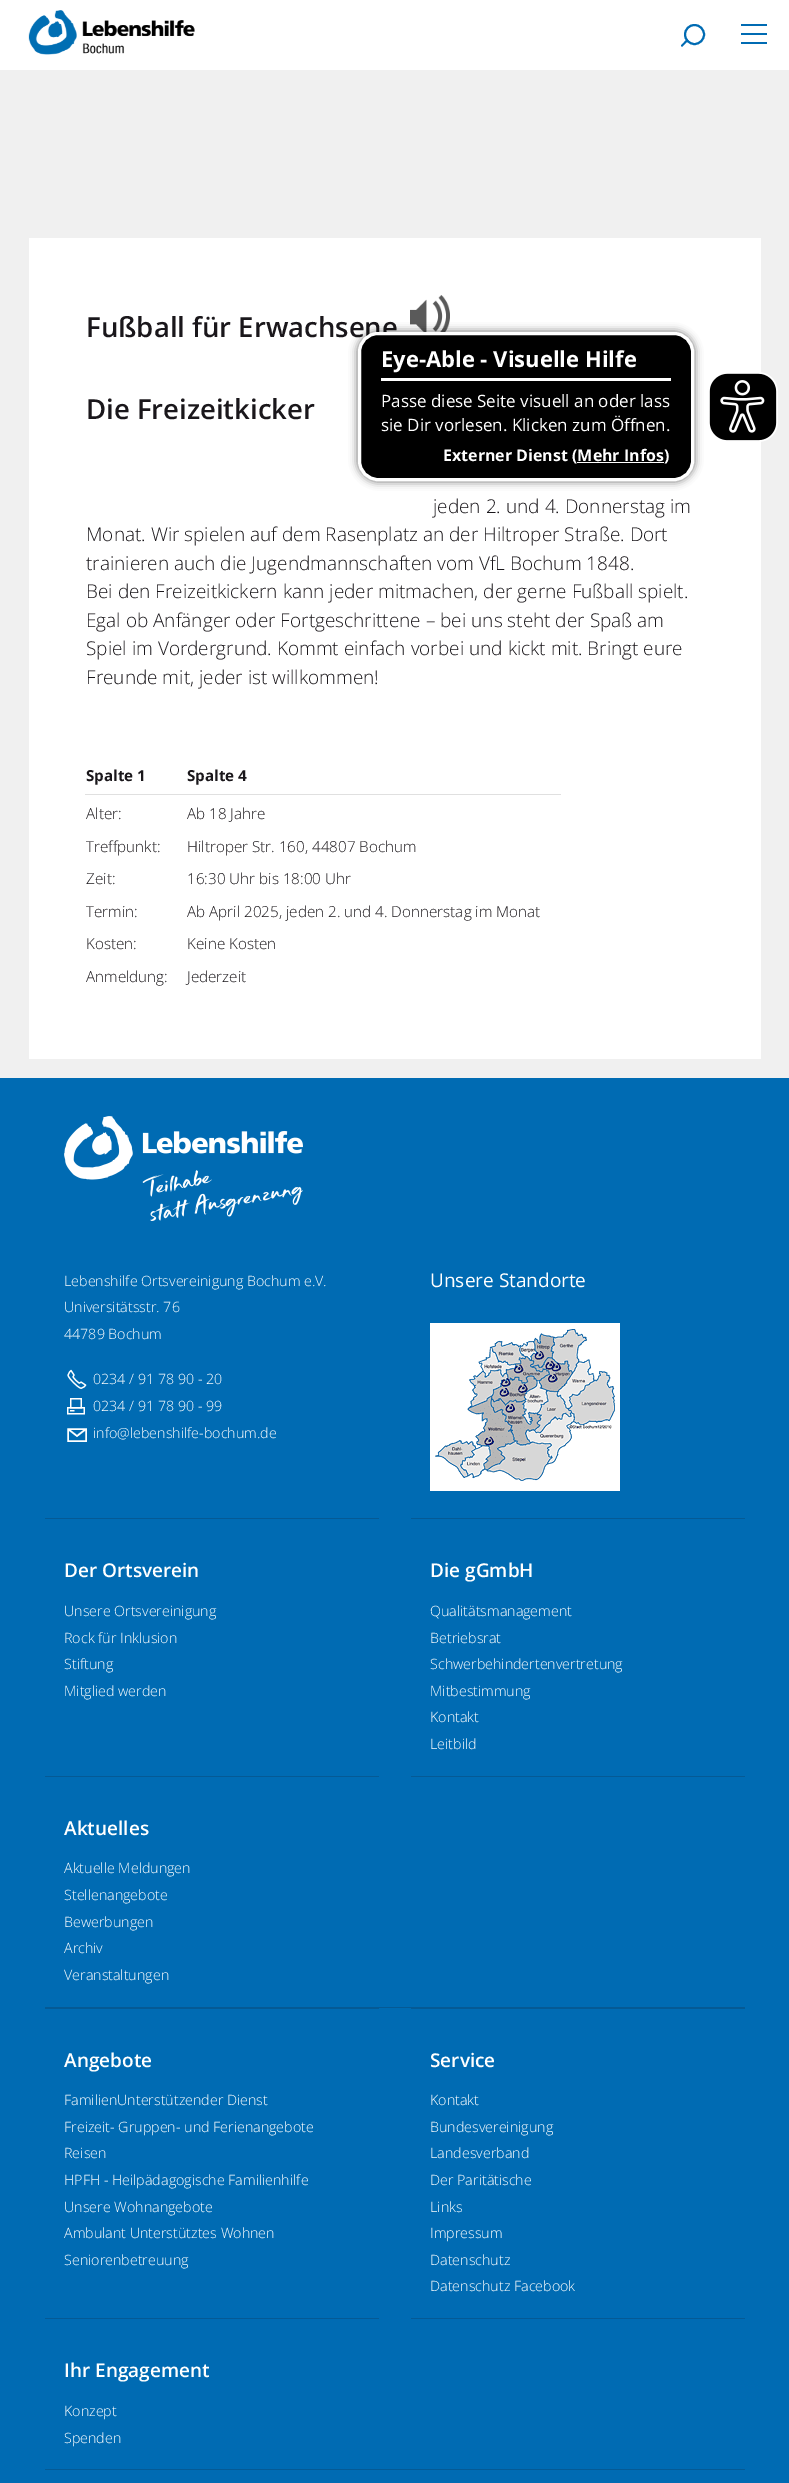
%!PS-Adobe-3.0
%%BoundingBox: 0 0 789 2483
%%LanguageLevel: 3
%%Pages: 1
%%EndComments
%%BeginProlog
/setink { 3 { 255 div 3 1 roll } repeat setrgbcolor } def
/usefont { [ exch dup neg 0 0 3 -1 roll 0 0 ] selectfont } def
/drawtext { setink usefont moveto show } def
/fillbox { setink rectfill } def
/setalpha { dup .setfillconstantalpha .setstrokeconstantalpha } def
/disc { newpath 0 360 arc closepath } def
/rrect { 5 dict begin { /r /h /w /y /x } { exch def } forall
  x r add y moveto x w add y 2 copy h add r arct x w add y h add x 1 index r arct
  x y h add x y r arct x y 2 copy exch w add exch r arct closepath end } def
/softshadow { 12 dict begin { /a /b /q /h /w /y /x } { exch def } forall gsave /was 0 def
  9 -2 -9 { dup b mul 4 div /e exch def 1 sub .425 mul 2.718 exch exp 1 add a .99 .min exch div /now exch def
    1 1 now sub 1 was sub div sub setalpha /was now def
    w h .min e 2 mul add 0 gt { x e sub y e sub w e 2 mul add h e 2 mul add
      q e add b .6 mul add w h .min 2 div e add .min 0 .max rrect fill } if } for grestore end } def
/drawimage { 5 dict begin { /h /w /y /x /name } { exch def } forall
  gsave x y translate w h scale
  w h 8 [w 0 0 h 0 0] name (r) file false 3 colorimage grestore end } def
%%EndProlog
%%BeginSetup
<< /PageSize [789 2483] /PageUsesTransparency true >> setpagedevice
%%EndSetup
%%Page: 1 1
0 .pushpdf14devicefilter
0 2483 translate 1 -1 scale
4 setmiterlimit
0 0 789 2483 240 240 240 fillbox
0 0 789 70 255 255 255 fillbox
(assets/img1.rgb) 28 10 167 45 drawimage
0 107 179 setink
2 setlinewidth
694.5 34.5 9.5 disc stroke
681 45.5 moveto 687 39 lineto 688.5 40.5 lineto 682 47 lineto closepath fill
741 24 26 2 0 107 179 fillbox
741 33 26 2 0 107 179 fillbox
741 42 26 2 0 107 179 fillbox
29 238 732 821 255 255 255 fillbox
(Fußball für Erwachsene) 86 337 /OpenSans-SemiBold 27.5 26 23 27 drawtext
(assets/img2.rgb) 410 295 40 37 drawimage
(Die Freizeitkicker) 86 419 /OpenSans-SemiBold 27.5 26 23 27 drawtext
(jeden 2. und 4. Donnerstag im) 433 513 /OpenSans-Light 19 26 23 27 drawtext
(Monat. Wir spielen auf dem Rasenplatz an der Hiltroper Straße. Dort) 86 541 /OpenSans-Light 19 26 23 27 drawtext
(trainieren auch die Jugendmannschaften vom VfL Bochum 1848.) 86 570 /OpenSans-Light 19 26 23 27 drawtext
(Bei den Freizeitkickern kann jeder mitmachen, der gerne Fußball spielt.) 86 598 /OpenSans-Light 19 26 23 27 drawtext
(Egal ob Anfänger oder Fortgeschrittene – bei uns steht der Spaß am) 86 627 /OpenSans-Light 19 26 23 27 drawtext
(Spiel im Vordergrund. Kommt einfach vorbei und kickt mit. Bringt eure) 86 655 /OpenSans-Light 19 26 23 27 drawtext
(Freunde mit, jeder ist willkommen!) 86 684 /OpenSans-Light 19 26 23 27 drawtext
(Spalte 1) 86 781 /OpenSans-Bold 15.2 26 23 27 drawtext
85 794 476 1 224 224 224 fillbox
(Spalte 4) 187 781 /OpenSans-Bold 15.2 26 23 27 drawtext
(Alter:) 86 819 /OpenSans-Light 15.2 26 23 27 drawtext
(Ab 18 Jahre) 187 819 /OpenSans-Light 15.2 26 23 27 drawtext
(Treffpunkt:) 86 852 /OpenSans-Light 15.2 26 23 27 drawtext
(Hiltroper Str. 160, 44807 Bochum) 187 852 /OpenSans-Light 15.2 26 23 27 drawtext
(Zeit:) 86 884 /OpenSans-Light 15.2 26 23 27 drawtext
(16:30 Uhr bis 18:00 Uhr) 187 884 /OpenSans-Light 15.2 26 23 27 drawtext
(Termin:) 86 917 /OpenSans-Light 15.2 26 23 27 drawtext
(Ab April 2025, jeden 2. und 4. Donnerstag im Monat) 187 917 /OpenSans-Light 15.2 26 23 27 drawtext
(Kosten:) 86 949 /OpenSans-Light 15.2 26 23 27 drawtext
(Keine Kosten) 187 949 /OpenSans-Light 15.2 26 23 27 drawtext
(Anmeldung:) 86 982 /OpenSans-Light 15.2 26 23 27 drawtext
(Jederzeit) 187 982 /OpenSans-Light 15.2 26 23 27 drawtext
0 1078 789 1405 0 107 179 fillbox
(assets/img3.rgb) 64 1116 239 105 drawimage
(Lebenshilfe Ortsvereinigung Bochum e.V.) 64 1286 /OpenSans-Light 14.25 255 255 255 drawtext
(Universitätsstr. 76) 64 1312 /OpenSans-Light 14.25 255 255 255 drawtext
(44789 Bochum) 64 1339 /OpenSans-Light 14.25 255 255 255 drawtext
(assets/img4.rgb) 67 1369 20 20 drawimage
(0234 / 91 78 90 - 20) 93 1384 /OpenSans-Light 14.25 255 255 255 drawtext
(assets/img5.rgb) 67 1398 18 17 drawimage
(0234 / 91 78 90 - 99) 93 1411 /OpenSans-Light 14.25 255 255 255 drawtext
1.5 setlinewidth
68 1429 moveto 86 1429 lineto 86 1441 lineto 68 1441 lineto closepath 68 1429 moveto 77 1436 lineto 86 1429 lineto stroke
(info@lebenshilfe-bochum.de) 93 1438 /OpenSans-Light 14.25 255 255 255 drawtext
(Unsere Standorte) 430 1287 /OpenSans-Regular 19 255 255 255 drawtext
(assets/img6.rgb) 430 1323 190 168 drawimage
45 1518 334 1 5 90 149 fillbox
45 1776 334 1 5 90 149 fillbox
(Der Ortsverein) 64 1577 /OpenSans-SemiBold 19 255 255 255 drawtext
(Unsere Ortsvereinigung) 64 1616 /OpenSans-Light 14.25 255 255 255 drawtext
(Rock für Inklusion) 64 1643 /OpenSans-Light 14.25 255 255 255 drawtext
(Stiftung) 64 1669 /OpenSans-Light 14.25 255 255 255 drawtext
(Mitglied werden) 64 1696 /OpenSans-Light 14.25 255 255 255 drawtext
411 1518 334 1 5 90 149 fillbox
411 1776 334 1 5 90 149 fillbox
(Die gGmbH) 430 1577 /OpenSans-SemiBold 19 255 255 255 drawtext
(Qualitätsmanagement) 430 1616 /OpenSans-Light 14.25 255 255 255 drawtext
(Betriebsrat) 430 1643 /OpenSans-Light 14.25 255 255 255 drawtext
(Schwerbehindertenvertretung) 430 1669 /OpenSans-Light 14.25 255 255 255 drawtext
(Mitbestimmung) 430 1696 /OpenSans-Light 14.25 255 255 255 drawtext
(Kontakt) 430 1722 /OpenSans-Light 14.25 255 255 255 drawtext
(Leitbild) 430 1749 /OpenSans-Light 14.25 255 255 255 drawtext
45 2007 700 1 5 90 149 fillbox
(Aktuelles) 64 1835 /OpenSans-SemiBold 19 255 255 255 drawtext
(Aktuelle Meldungen) 64 1873 /OpenSans-Light 14.25 255 255 255 drawtext
(Stellenangebote) 64 1900 /OpenSans-Light 14.25 255 255 255 drawtext
(Bewerbungen) 64 1927 /OpenSans-Light 14.25 255 255 255 drawtext
(Archiv) 64 1953 /OpenSans-Light 14.25 255 255 255 drawtext
(Veranstaltungen) 64 1980 /OpenSans-Light 14.25 255 255 255 drawtext
45 2008 334 1 5 90 149 fillbox
45 2318 334 1 5 90 149 fillbox
(Angebote) 64 2067 /OpenSans-SemiBold 19 255 255 255 drawtext
(FamilienUnterstützender Dienst) 64 2105 /OpenSans-Light 14.25 255 255 255 drawtext
(Freizeit- Gruppen- und Ferienangebote) 64 2132 /OpenSans-Light 14.25 255 255 255 drawtext
(Reisen) 64 2158 /OpenSans-Light 14.25 255 255 255 drawtext
(HPFH - Heilpädagogische Familienhilfe) 64 2185 /OpenSans-Light 14.25 255 255 255 drawtext
(Unsere Wohnangebote) 64 2212 /OpenSans-Light 14.25 255 255 255 drawtext
(Ambulant Unterstütztes Wohnen) 64 2238 /OpenSans-Light 14.25 255 255 255 drawtext
(Seniorenbetreuung) 64 2265 /OpenSans-Light 14.25 255 255 255 drawtext
411 2008 334 1 5 90 149 fillbox
411 2318 334 1 5 90 149 fillbox
(Service) 430 2067 /OpenSans-SemiBold 19 255 255 255 drawtext
(Kontakt) 430 2105 /OpenSans-Light 14.25 255 255 255 drawtext
(Bundesvereinigung) 430 2132 /OpenSans-Light 14.25 255 255 255 drawtext
(Landesverband) 430 2158 /OpenSans-Light 14.25 255 255 255 drawtext
(Der Paritätische) 430 2185 /OpenSans-Light 14.25 255 255 255 drawtext
(Links) 430 2212 /OpenSans-Light 14.25 255 255 255 drawtext
(Impressum) 430 2238 /OpenSans-Light 14.25 255 255 255 drawtext
(Datenschutz) 430 2265 /OpenSans-Light 14.25 255 255 255 drawtext
(Datenschutz Facebook) 430 2291 /OpenSans-Light 14.25 255 255 255 drawtext
45 2469 700 1 5 90 149 fillbox
(Ihr Engagement) 64 2377 /OpenSans-SemiBold 19 255 255 255 drawtext
(Konzept) 64 2416 /OpenSans-Light 14.25 255 255 255 drawtext
(Spenden) 64 2443 /OpenSans-Light 14.25 255 255 255 drawtext
0 0 0 setink
357 331 338 151 21 4 0.5 softshadow
359.5 333.5 333 146 18.5 rrect gsave fill grestore
255 255 255 setink
3 setlinewidth
stroke
381 378 290 3 255 255 255 fillbox
(Eye-Able - Visuelle Hilfe) 381 367 /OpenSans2-Bold 22 255 255 255 drawtext
(Passe diese Seite visuell an oder lass) 381 407 /OpenSans2-Regular 17 255 255 255 drawtext
(sie Dir vorlesen. Klicken zum Öffnen.) 381 431 /OpenSans2-Regular 17 255 255 255 drawtext
(Externer Dienst \(Mehr Infos\)) 443 461 /OpenSans2-Bold 16 255 255 255 drawtext
577 462 87 1 255 255 255 fillbox
(assets/img7.rgb) 709 372 69 70 drawimage
.poppdf14devicefilter showpage
%%EOF
